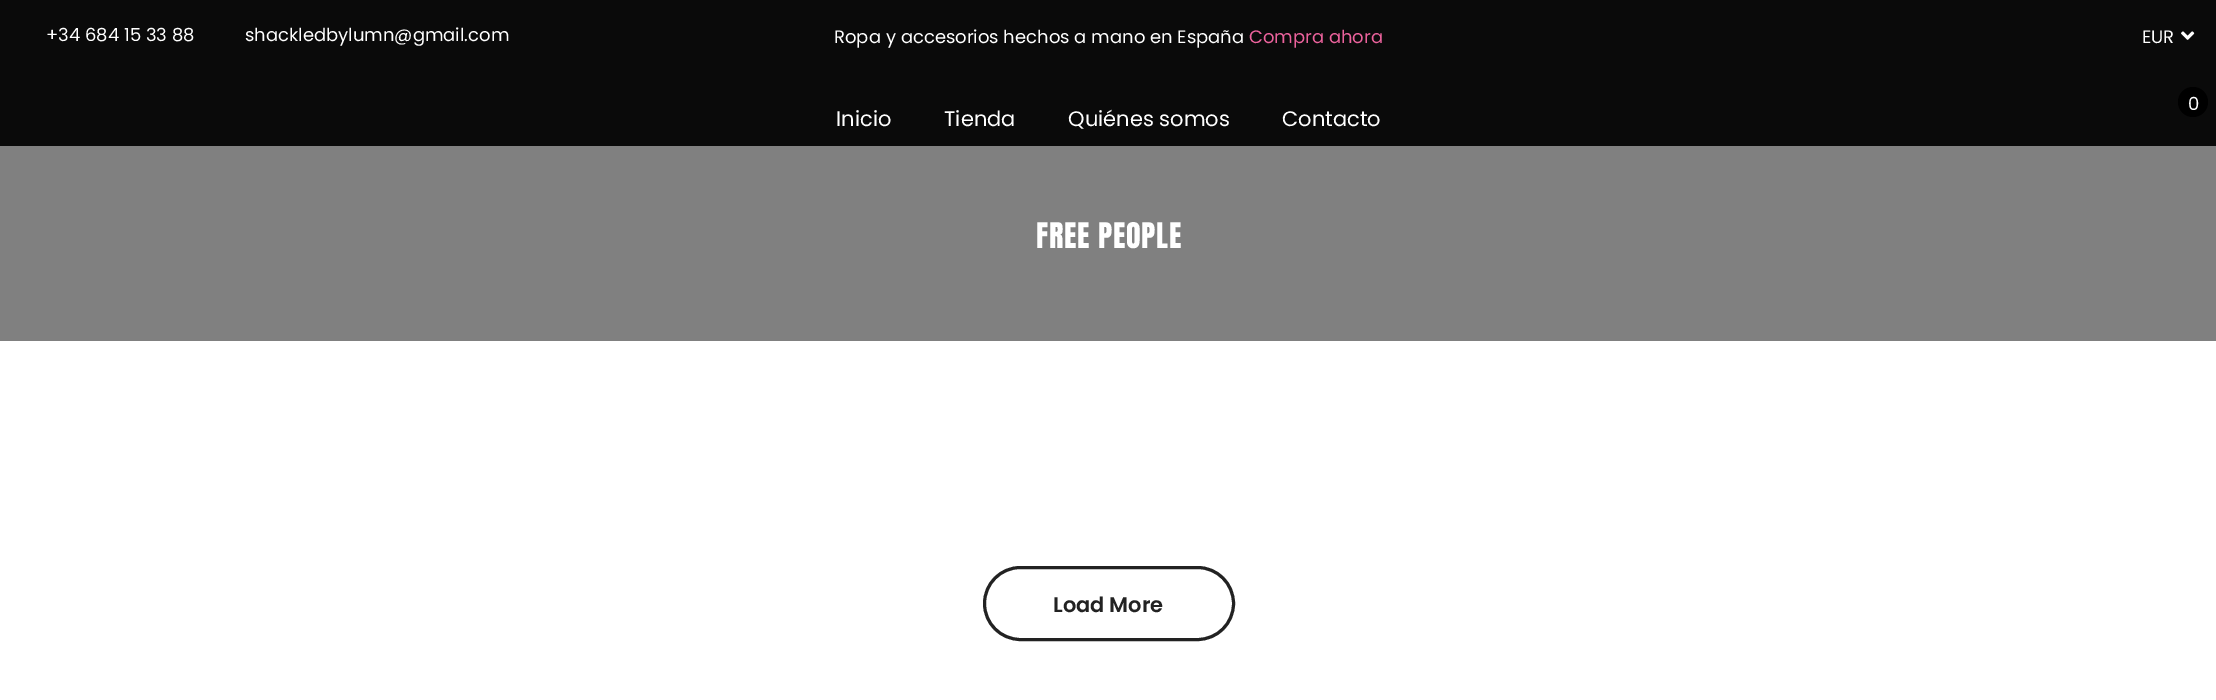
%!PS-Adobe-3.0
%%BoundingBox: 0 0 2216 700
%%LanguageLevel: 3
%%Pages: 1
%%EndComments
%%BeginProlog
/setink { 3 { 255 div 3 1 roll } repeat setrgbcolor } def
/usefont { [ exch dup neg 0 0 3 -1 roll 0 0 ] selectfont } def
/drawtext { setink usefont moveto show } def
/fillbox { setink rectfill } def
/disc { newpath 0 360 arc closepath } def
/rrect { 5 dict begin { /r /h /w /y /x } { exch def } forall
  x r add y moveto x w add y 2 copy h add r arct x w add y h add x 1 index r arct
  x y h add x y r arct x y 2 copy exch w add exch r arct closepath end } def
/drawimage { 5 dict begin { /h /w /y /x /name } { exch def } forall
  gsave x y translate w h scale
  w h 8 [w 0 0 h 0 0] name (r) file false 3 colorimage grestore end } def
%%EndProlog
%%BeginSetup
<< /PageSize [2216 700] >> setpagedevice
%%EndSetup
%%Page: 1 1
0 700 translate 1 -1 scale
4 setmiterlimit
0 0 2216 700 255 255 255 fillbox
0 0 2216 146 10 10 10 fillbox
(+34 684 15 33 88) 46 41 /Poppins-Regular 18 255 255 255 drawtext
(shackledbylumn@gmail.com) 245 41 /Poppins-Regular 18 255 255 255 drawtext
(Ropa y accesorios hechos a mano en España) 834 43 /Poppins-Regular 18 255 255 255 drawtext
(Compra ahora) 1249 43 /Poppins-Regular 18 235 98 156 drawtext
(EUR) 2142 43 /Poppins-Regular 18 255 255 255 drawtext
(assets/img1.rgb) 2181 31 14 9 drawimage
0 0 0 setink
2193 102 15 disc fill
(0) 2188 110 /Poppins-Regular 18 255 255 255 drawtext
(Inicio) 836 126 /Poppins-Regular 21 255 255 255 drawtext
(Tienda) 944 126 /Poppins-Regular 21 255 255 255 drawtext
(Quiénes somos) 1068 126 /Poppins-Regular 21 255 255 255 drawtext
(Contacto) 1282 126 /Poppins-Regular 21 255 255 255 drawtext
0 146 2216 195 128 128 128 fillbox
/Anton-Regular 30 usefont
255 255 255 setink
1036 248 moveto 0.75 0 (FREE PEOPLE) ashow
34 34 34 setink
3 setlinewidth
984.5 567.5 249 72 36 rrect stroke
(Load More) 1053 612 /Poppins-SemiBold 21 34 34 34 drawtext
showpage
%%EOF
